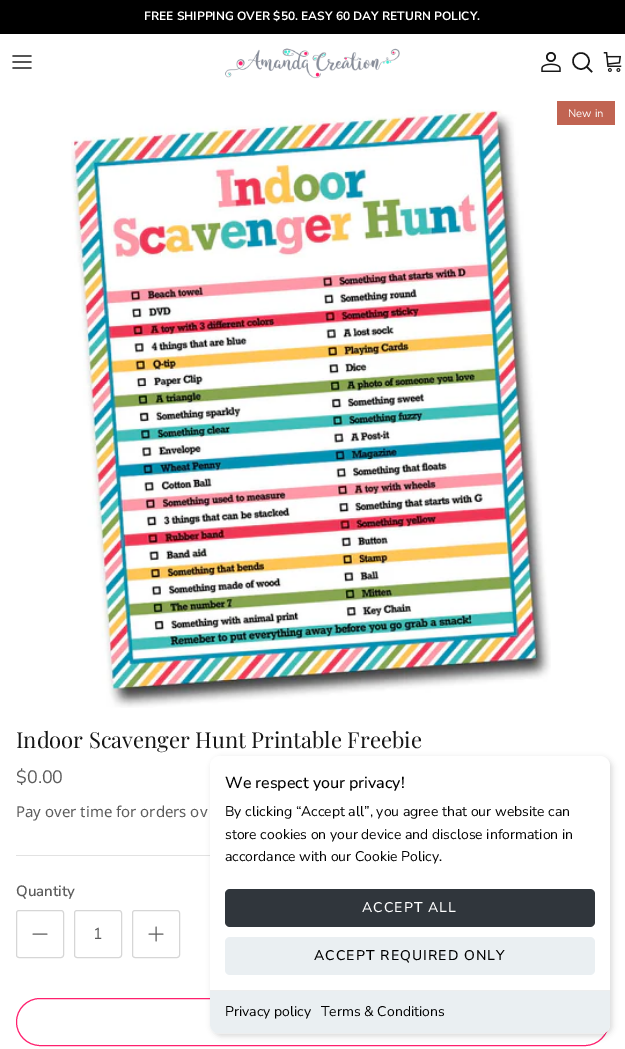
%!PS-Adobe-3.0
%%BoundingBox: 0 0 625 1049
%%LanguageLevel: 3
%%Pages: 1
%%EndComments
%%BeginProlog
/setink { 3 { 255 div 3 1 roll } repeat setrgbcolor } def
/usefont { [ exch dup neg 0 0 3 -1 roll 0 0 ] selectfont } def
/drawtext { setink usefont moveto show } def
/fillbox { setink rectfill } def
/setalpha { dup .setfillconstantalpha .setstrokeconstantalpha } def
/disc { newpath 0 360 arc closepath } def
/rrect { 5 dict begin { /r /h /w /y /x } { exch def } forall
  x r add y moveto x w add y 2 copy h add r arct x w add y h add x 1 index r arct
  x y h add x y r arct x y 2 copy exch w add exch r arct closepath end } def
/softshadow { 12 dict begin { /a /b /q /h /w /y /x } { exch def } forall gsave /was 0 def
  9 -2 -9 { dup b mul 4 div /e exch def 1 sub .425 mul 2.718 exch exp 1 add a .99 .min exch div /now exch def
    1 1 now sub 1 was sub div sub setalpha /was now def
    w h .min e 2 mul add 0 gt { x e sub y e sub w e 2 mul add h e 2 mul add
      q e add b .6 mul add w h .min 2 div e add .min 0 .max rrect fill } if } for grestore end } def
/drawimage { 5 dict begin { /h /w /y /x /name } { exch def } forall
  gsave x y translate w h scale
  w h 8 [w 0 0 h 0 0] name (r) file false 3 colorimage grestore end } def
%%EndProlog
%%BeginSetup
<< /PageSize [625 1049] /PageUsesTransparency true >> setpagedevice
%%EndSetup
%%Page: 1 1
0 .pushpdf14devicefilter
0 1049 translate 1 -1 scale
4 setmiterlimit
0 0 625 1049 255 255 255 fillbox
0 0 625 34 0 0 0 fillbox
(FREE SHIPPING OVER $50. EASY 60 DAY RETURN POLICY.) 144 20 /NunitoSans-Bold 12 255 255 255 drawtext
(assets/img1.rgb) 12 55 20 14 drawimage
(assets/img2.rgb) 225 48 175 31 drawimage
(assets/img3.rgb) 541 52 20 20 drawimage
23 23 23 setink
1.5 setlinewidth
581 61 8 disc stroke
2 setlinecap
587 67 moveto 591.5 71.5 lineto stroke
(assets/img4.rgb) 603 52 19 20 drawimage
(assets/img5.rgb) 71 109 480 599 drawimage
557 101 58 24 193 100 82 fillbox
(New in) 568 117 /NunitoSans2-Regular 11 255 255 255 drawtext
(Indoor Scavenger Hunt Printable Freebie) 16 748 /PlayfairDisplay-Regular 22 23 23 23 drawtext
($0.00) 16 783 /NunitoSans-Regular 18 92 92 92 drawtext
(Pay over time for orders ov) 16 817 /NotoSans-Regular 15 92 92 92 drawtext
16 855 194 1 226 226 226 fillbox
(Quantity) 16 896 /NunitoSans-SemiBold 15 92 92 92 drawtext
214 214 214 setink
1 setlinewidth
0 setlinecap
16.5 910.5 47 47 2.5 rrect stroke
92 92 92 setink
1 setlinecap
1 setlinejoin
33 934 moveto 47 934 lineto stroke
214 214 214 setink
0 setlinecap
0 setlinejoin
74.5 910.5 47 47 2.5 rrect stroke
(1) 93 939 /NunitoSans-Regular 16 92 92 92 drawtext
214 214 214 setink
132.5 910.5 47 47 2.5 rrect stroke
92 92 92 setink
1 setlinecap
1 setlinejoin
156 927 moveto 156 941 lineto 149 934 moveto 163 934 lineto stroke
255 32 110 setink
0 setlinecap
0 setlinejoin
16.5 998.5 592 47 23.5 rrect stroke
0 0 0 setink
212 758 400 278 10 3 0.15 softshadow
255 255 255 setink
210 756 400 278 10 rrect fill
(We respect your privacy!) 225 788 /NunitoSans-Medium 16 0 0 0 drawtext
(By clicking “Accept all”, you agree that our website can) 225 816 /NunitoSans-Regular 14 0 0 0 drawtext
(store cookies on your device and disclose information in) 225 839 /NunitoSans-Regular 14 0 0 0 drawtext
(accordance with our Cookie Policy.) 225 861 /NunitoSans-Regular 14 0 0 0 drawtext
48 54 60 setink
225 889 370 38 5 rrect fill
/NunitoSans-Medium 14 usefont
255 255 255 setink
362 912 moveto 1.1 0 (ACCEPT ALL) ashow
234 239 242 setink
225 937 370 38 5 rrect fill
0 0 0 setink
314 960 moveto 1.1 0 (ACCEPT REQUIRED ONLY) ashow
234 239 242 setink
210 990 moveto 610 990 lineto 610 1024 lineto 610 1029.5 605.5 1034 600 1034 curveto 220 1034 lineto 214.5 1034 210 1029.5 210 1024 curveto closepath fill
210 990 400 1 238 238 238 fillbox
gsave
210 756 400 278 10 rrect clip newpath
210 1033 400 1 238 238 238 fillbox
grestore
(Privacy policy) 225 1016 /NunitoSans-Regular 14 0 0 0 drawtext
(Terms & Conditions) 321 1016 /NunitoSans-Regular 14 0 0 0 drawtext
.poppdf14devicefilter showpage
%%EOF
